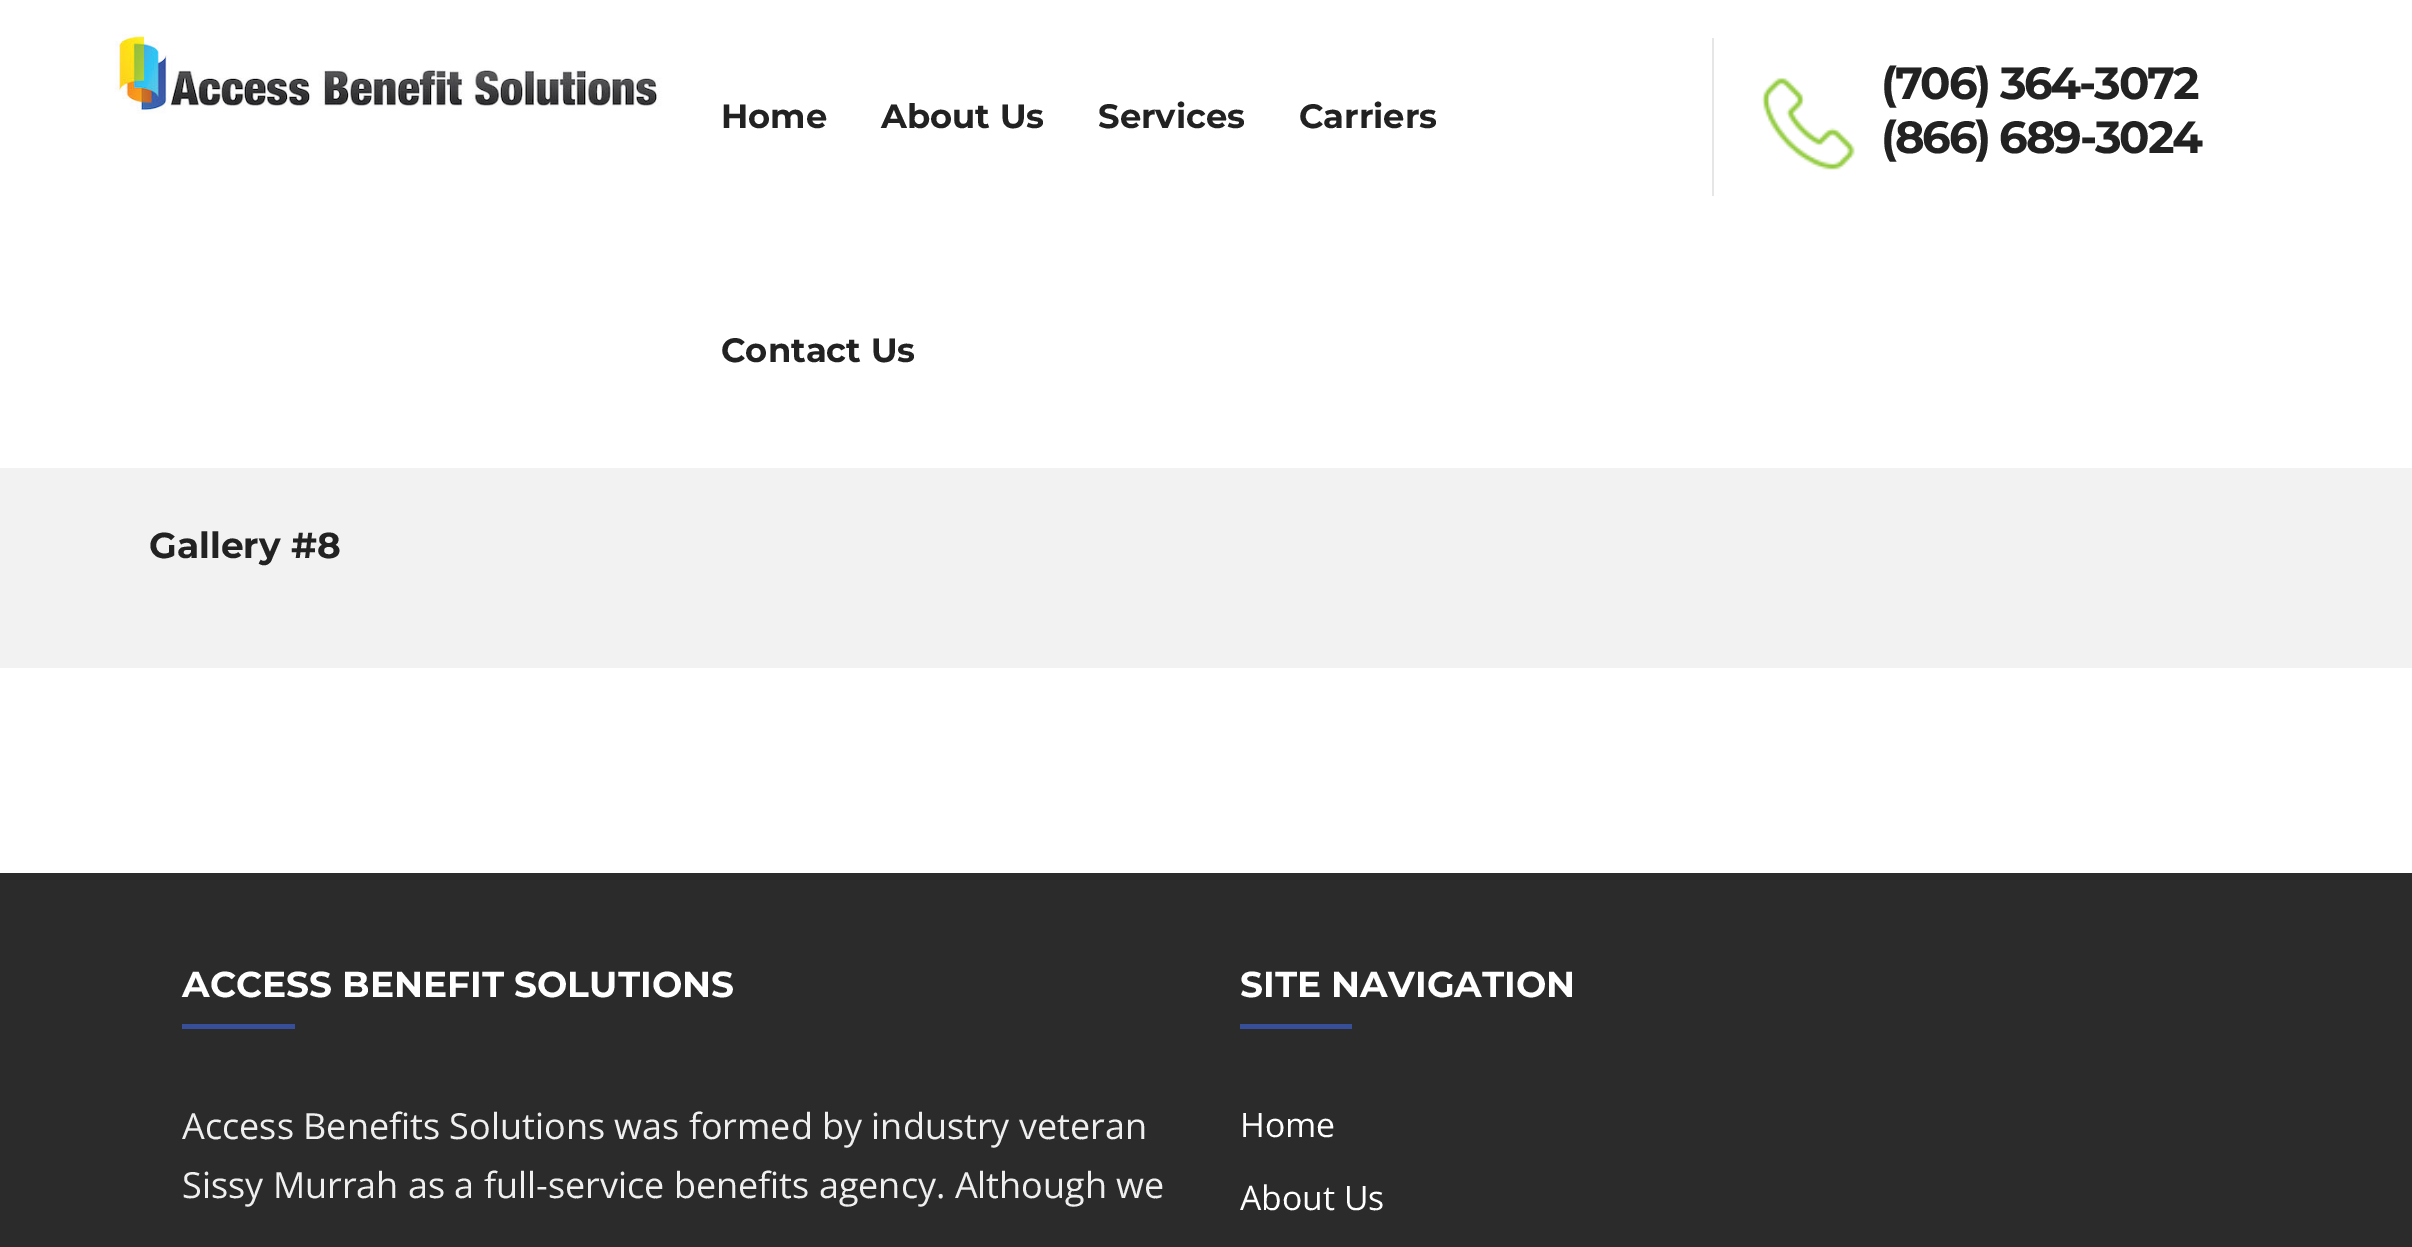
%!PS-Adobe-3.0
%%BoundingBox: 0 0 2412 1247
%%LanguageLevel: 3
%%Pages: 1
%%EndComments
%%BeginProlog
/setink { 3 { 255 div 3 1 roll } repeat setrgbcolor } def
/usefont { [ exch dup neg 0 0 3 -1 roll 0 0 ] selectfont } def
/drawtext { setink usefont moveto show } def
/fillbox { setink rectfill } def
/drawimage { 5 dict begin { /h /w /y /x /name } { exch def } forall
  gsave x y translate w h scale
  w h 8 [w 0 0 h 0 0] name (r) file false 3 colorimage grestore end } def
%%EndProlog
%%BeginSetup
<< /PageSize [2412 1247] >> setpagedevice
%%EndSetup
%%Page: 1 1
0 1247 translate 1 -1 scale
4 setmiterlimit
0 0 2412 1247 255 255 255 fillbox
(assets/img1.rgb) 114 34 548 80 drawimage
(Home) 721 128 /Montserrat-Bold 33.75 34 34 34 drawtext
(About Us) 881 128 /Montserrat-Bold 33.75 34 34 34 drawtext
(Services) 1098 128 /Montserrat-Bold 33.75 34 34 34 drawtext
(Carriers) 1299 128 /Montserrat-Bold 33.75 34 34 34 drawtext
(Contact Us) 721 362 /Montserrat-Bold 33.75 34 34 34 drawtext
1712 38 2 158 230 230 230 fillbox
(assets/img2.rgb) 1761 78 94 92 drawimage
/Montserrat-Bold 45 usefont
34 34 34 setink
1881 99 moveto -2.25 0 (\(706\) 364-3072) ashow
1881 153 moveto -2.25 0 (\(866\) 689-3024) ashow
0 468 2412 200 242 242 242 fillbox
(Gallery #8) 149 558 /Montserrat-Bold 36 34 34 34 drawtext
0 873 2412 374 43 43 43 fillbox
(ACCESS BENEFIT SOLUTIONS) 182 997 /Montserrat-Bold 36 255 255 255 drawtext
182 1024 113 5 55 79 153 fillbox
(Access Benefits Solutions was formed by industry veteran) 182 1139 /OpenSans-Regular 36 239 239 239 drawtext
(Sissy Murrah as a full-service benefits agency. Although we) 182 1198 /OpenSans-Regular 36 239 239 239 drawtext
(SITE NAVIGATION) 1240 997 /Montserrat-Bold 36 255 255 255 drawtext
1240 1024 112 5 55 79 153 fillbox
(Home) 1240 1137 /OpenSans-Regular 33.75 255 255 255 drawtext
(About Us) 1240 1210 /OpenSans-Regular 33.75 255 255 255 drawtext
showpage
%%EOF
